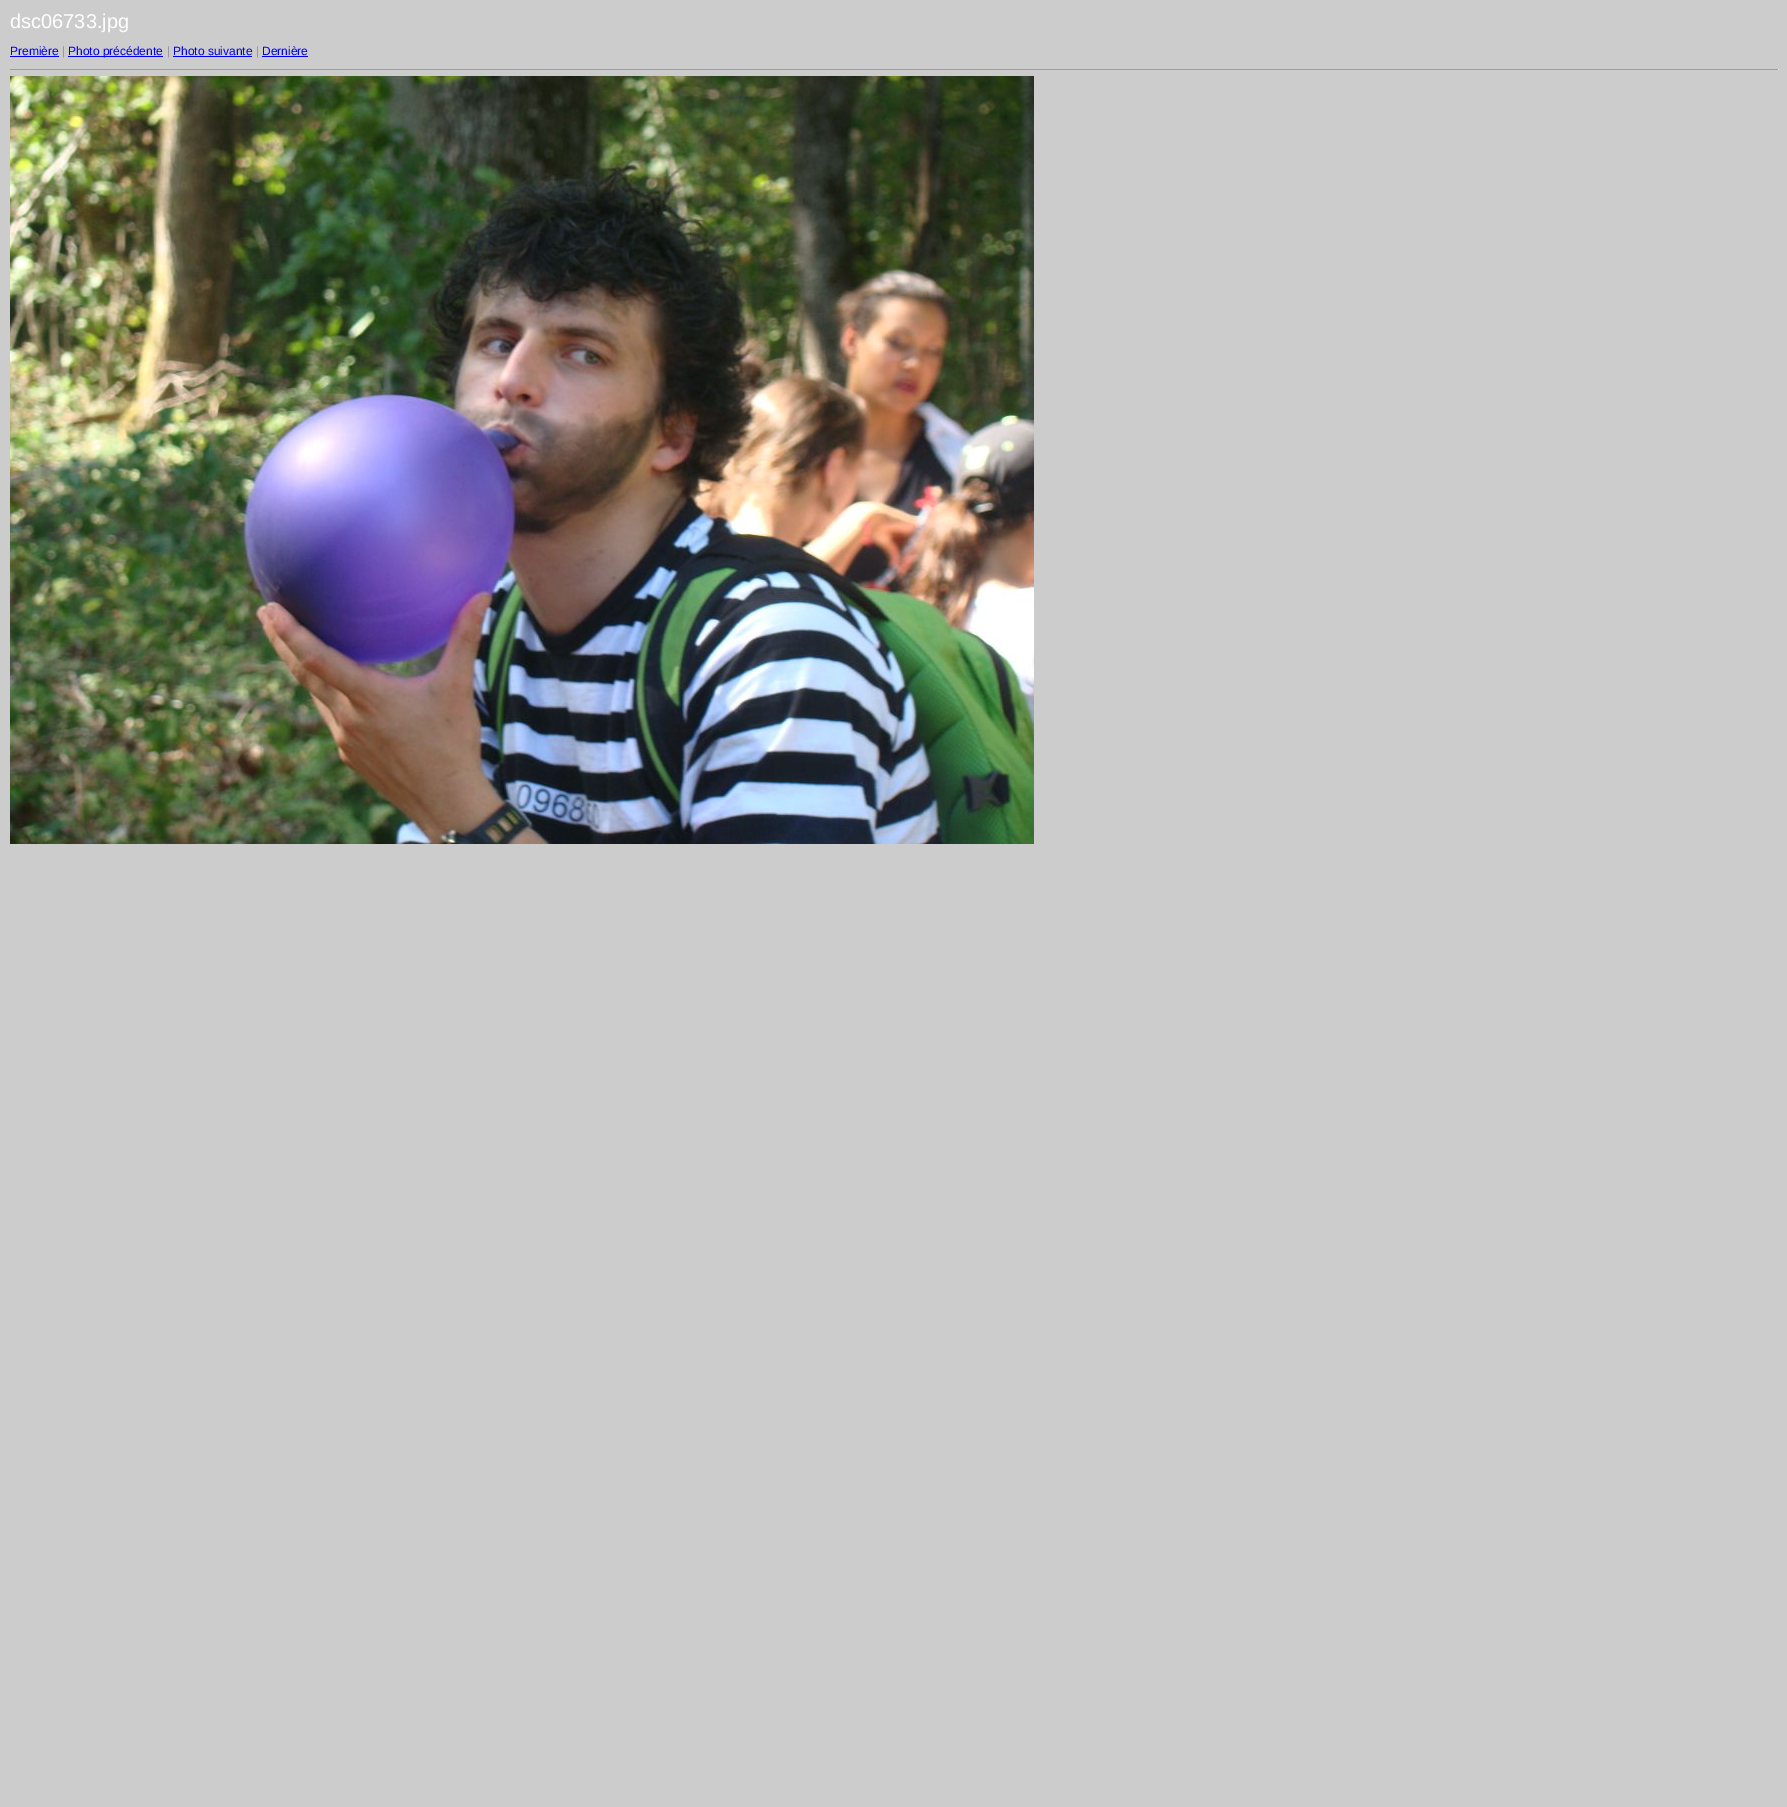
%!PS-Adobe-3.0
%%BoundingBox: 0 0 1787 1807
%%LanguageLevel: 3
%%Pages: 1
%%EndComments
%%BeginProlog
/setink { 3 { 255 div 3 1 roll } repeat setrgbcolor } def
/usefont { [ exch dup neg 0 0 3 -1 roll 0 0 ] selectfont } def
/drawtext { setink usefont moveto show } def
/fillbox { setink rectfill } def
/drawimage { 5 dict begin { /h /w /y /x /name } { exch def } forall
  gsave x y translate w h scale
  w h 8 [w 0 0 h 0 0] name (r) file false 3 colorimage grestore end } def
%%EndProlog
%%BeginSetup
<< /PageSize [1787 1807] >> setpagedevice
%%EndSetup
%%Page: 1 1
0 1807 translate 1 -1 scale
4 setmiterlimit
0 0 1787 1807 204 204 204 fillbox
(dsc06733.jpg) 10 28 /LiberationSans-Regular 20 255 255 255 drawtext
(Première) 10 55 /LiberationSans-Regular 12 0 0 238 drawtext
10 56 49 1 0 0 238 fillbox
(|) 62 55 /LiberationSans-Regular 12 153 153 153 drawtext
68 56 95 1 0 0 238 fillbox
(Photo précédente) 68 55 /LiberationSans-Regular 12 0 0 238 drawtext
(|) 167 55 /LiberationSans-Regular 12 153 153 153 drawtext
(Photo suivante) 173 55 /LiberationSans-Regular 12 0 0 238 drawtext
173 56 79 1 0 0 238 fillbox
(|) 256 55 /LiberationSans-Regular 12 153 153 153 drawtext
(Dernière) 262 55 /LiberationSans-Regular 12 0 0 238 drawtext
262 56 46 1 0 0 238 fillbox
10 69 1769 1 159 159 159 fillbox
1778 69 1 1 238 238 238 fillbox
(assets/img1.rgb) 10 76 1024 768 drawimage
showpage
%%EOF
